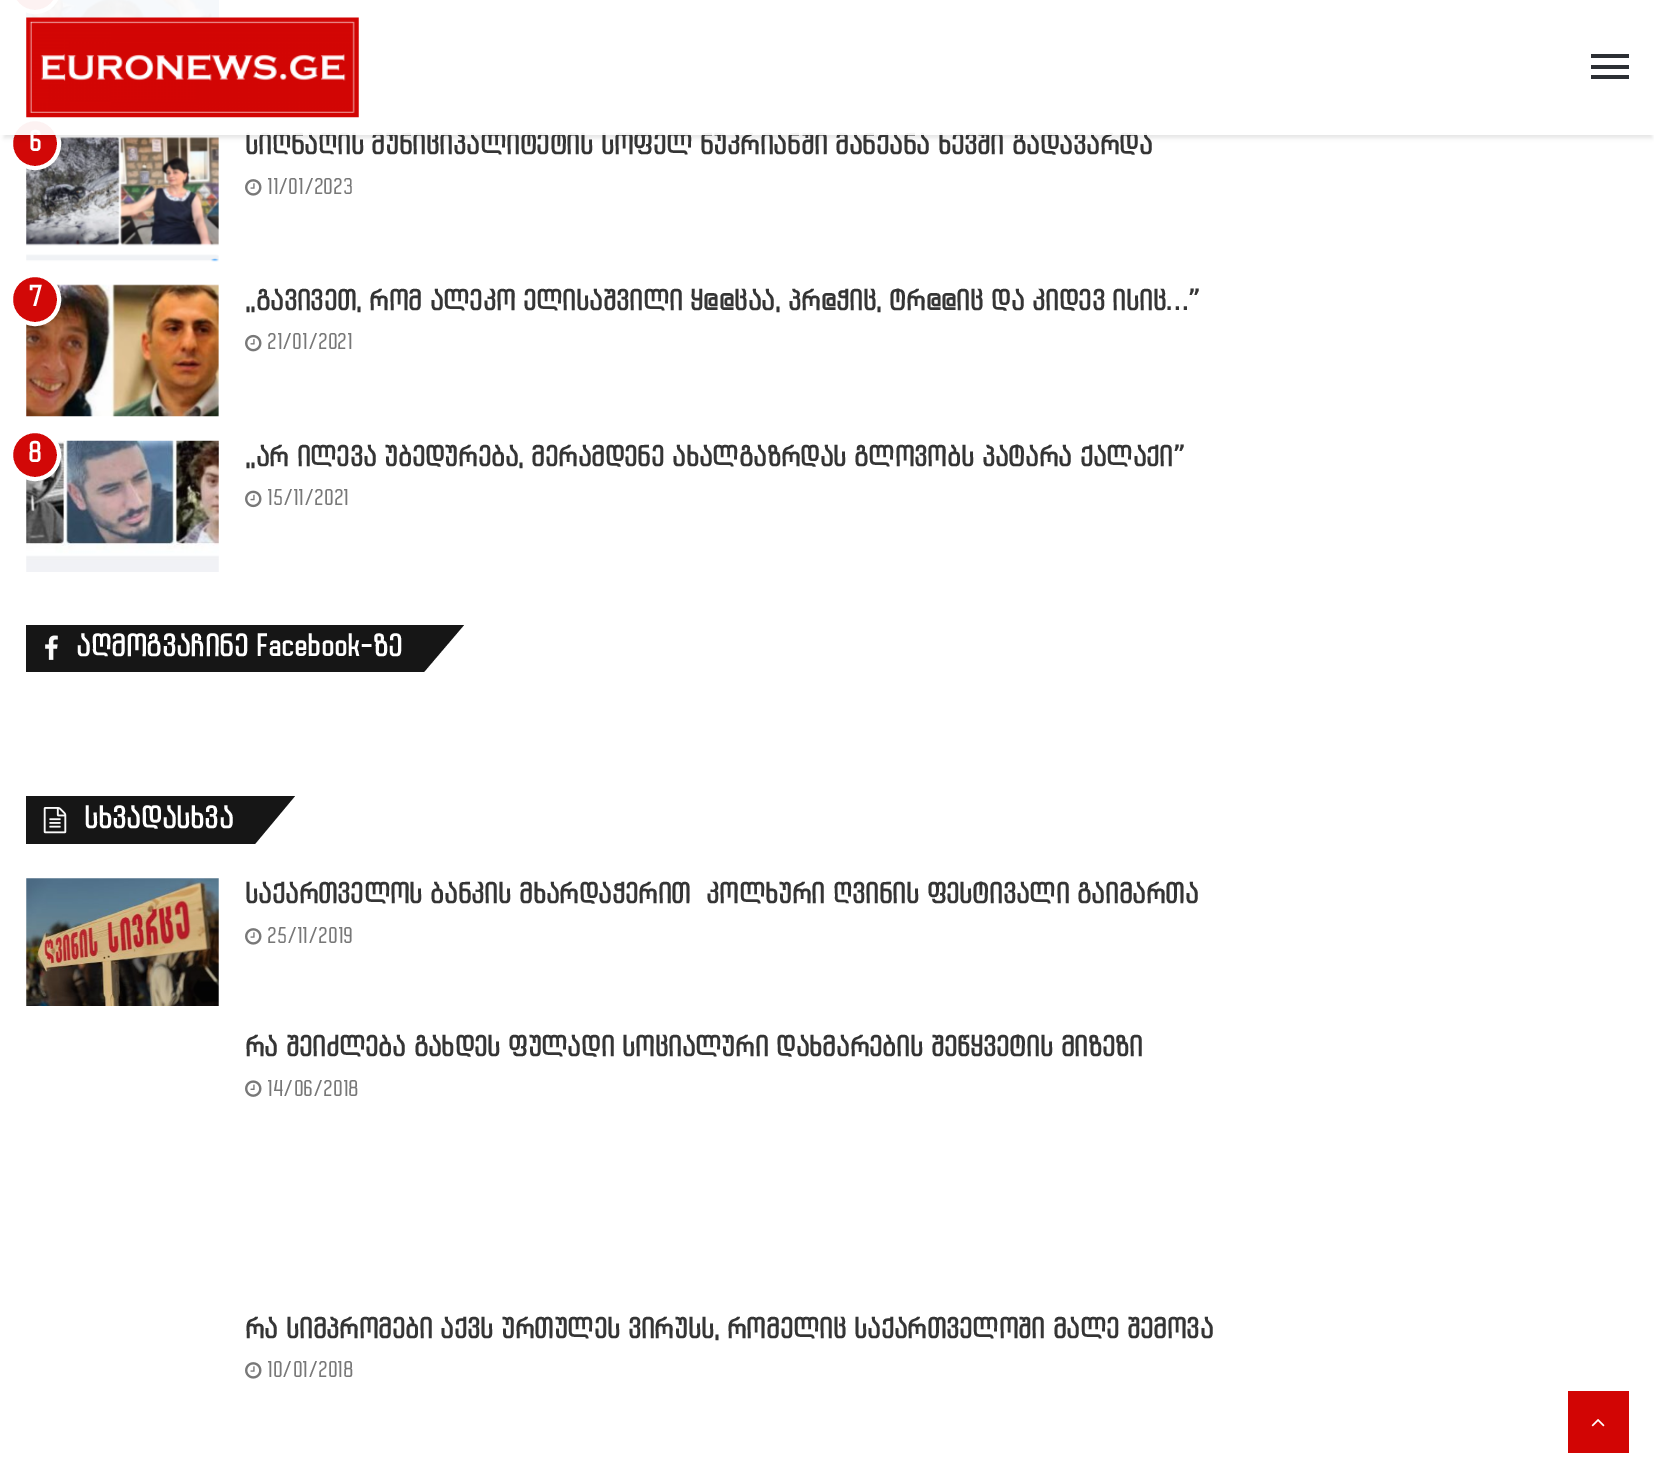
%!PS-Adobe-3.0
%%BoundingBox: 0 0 1654 1478
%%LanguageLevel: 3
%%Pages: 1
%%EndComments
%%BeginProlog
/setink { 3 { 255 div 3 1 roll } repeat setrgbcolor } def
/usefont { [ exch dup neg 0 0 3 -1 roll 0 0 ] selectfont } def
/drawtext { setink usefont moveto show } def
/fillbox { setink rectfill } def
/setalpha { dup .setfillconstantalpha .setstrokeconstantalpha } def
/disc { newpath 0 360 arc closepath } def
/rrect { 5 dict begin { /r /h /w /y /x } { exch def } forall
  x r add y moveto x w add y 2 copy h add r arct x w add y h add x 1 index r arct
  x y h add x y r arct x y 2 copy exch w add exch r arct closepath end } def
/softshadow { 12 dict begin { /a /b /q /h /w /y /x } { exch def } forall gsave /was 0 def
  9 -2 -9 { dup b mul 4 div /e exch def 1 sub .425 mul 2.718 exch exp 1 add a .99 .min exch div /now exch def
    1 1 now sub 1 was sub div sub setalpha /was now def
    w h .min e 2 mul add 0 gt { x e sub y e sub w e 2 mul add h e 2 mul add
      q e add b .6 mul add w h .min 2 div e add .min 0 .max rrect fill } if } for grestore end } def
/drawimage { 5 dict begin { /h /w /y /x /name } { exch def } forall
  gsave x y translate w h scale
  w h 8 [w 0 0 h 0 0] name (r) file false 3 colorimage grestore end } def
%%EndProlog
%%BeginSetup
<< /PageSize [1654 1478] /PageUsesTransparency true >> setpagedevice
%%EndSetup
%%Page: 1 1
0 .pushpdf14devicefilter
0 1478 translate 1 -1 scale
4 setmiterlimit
0 0 1654 1478 255 255 255 fillbox
(assets/img2.rgb) 26 0 193 105 drawimage
210 8 7 setink
11 -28 48 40 24 rrect gsave fill grestore
255 255 255 setink
4 setlinewidth
stroke
(assets/img4.rgb) 26 136 193 126 drawimage
210 8 7 setink
11 119 48 49 24 rrect gsave fill grestore
255 255 255 setink
stroke
gsave
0 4 moveto 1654 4 lineto 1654 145 lineto 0 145 lineto closepath 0 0 moveto 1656 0 lineto 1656 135 lineto 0 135 lineto closepath eoclip newpath
0 0 0 setink
4 11 1648 127 0 2 0.1 softshadow
grestore
(6) 29 151 /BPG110-Bold 24.5 255 255 255 drawtext
(სიღნაღის მუნიციპალიტეტის სოფელ ნუკრიანში მანქანა ხევში გადავარდა) 245 154 /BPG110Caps-Bold 24.5 53 53 53 drawtext
0.95 setalpha
4 0 1648 135 255 255 255 fillbox
1 setalpha
(assets/img1.rgb) 26 17 333 101 drawimage
1591 65 38 4 44 47 52 fillbox
1591 54 38 4 44 47 52 fillbox
1591 75 38 4 44 47 52 fillbox
(assets/img3.rgb) 245 179 17 17 drawimage
(11/01/2023) 267 194 /BPG110-Regular 19.25 119 119 119 drawtext
(assets/img5.rgb) 26 284 193 133 drawimage
210 8 7 setink
11 275 48 49 24 rrect gsave fill grestore
255 255 255 setink
stroke
(7) 29 306 /BPG110-Bold 24.5 255 255 255 drawtext
(,,გავივეთ, რომ ალეკო ელისაშვილი ყ@@ცაა, პრ@ჭიც, ტრ@@იც და კიდევ ისიც…”) 245 310 /BPG110Caps-Bold 24.5 53 53 53 drawtext
(assets/img6.rgb) 245 334 17 18 drawimage
(21/01/2021) 267 349 /BPG110-Regular 19.25 119 119 119 drawtext
(assets/img7.rgb) 26 440 193 132 drawimage
210 8 7 setink
35 455 24 disc gsave fill grestore
255 255 255 setink
stroke
(8) 28 462 /BPG110-Bold 24.5 255 255 255 drawtext
(,,არ ილევა უბედურება, მერამდენე ახალგაზრდას გლოვობს პატარა ქალაქი”) 245 466 /BPG110Caps-Bold 24.5 53 53 53 drawtext
(assets/img8.rgb) 245 490 17 18 drawimage
(15/11/2021) 267 505 /BPG110-Regular 19.25 119 119 119 drawtext
26 625 163 47 22 22 22 fillbox
189 625 moveto 464 625 lineto 424 672 lineto 149 672 lineto closepath fill
(assets/img9.rgb) 45 635 13 25 drawimage
(აღმოგვაჩინე Facebook-ზე) 76 656 /BPG110Caps-Bold 26.25 255 255 255 drawtext
26 796 112 48 22 22 22 fillbox
138 796 moveto 295 796 lineto 255 844 lineto 98 844 lineto closepath fill
(assets/img10.rgb) 43 807 24 27 drawimage
(სხვადასხვა) 84 828 /BPG110Caps-Bold 26.25 255 255 255 drawtext
(assets/img11.rgb) 26 878 193 128 drawimage
(საქართველოს ბანკის მხარდაჭერით  კოლხური ღვინის ფესტივალი გაიმართა) 245 903 /BPG110Caps-Bold 24.5 53 53 53 drawtext
(assets/img3.rgb) 245 928 17 17 drawimage
(25/11/2019) 267 943 /BPG110-Regular 19.25 119 119 119 drawtext
(რა შეიძლება გახდეს ფულადი სოციალური დახმარების შეწყვეტის მიზეზი) 245 1056 /BPG110Caps-Bold 24.5 53 53 53 drawtext
(assets/img12.rgb) 245 1080 17 17 drawimage
(14/06/2018) 267 1096 /BPG110-Regular 19.25 119 119 119 drawtext
(რა სიმპრომები აქვს ურთულეს ვირუსს, რომელიც საქართველოში მალე შემოვა) 245 1338 /BPG110Caps-Bold 24.5 53 53 53 drawtext
(assets/img3.rgb) 245 1362 17 17 drawimage
(10/01/2018) 267 1377 /BPG110-Regular 19.25 119 119 119 drawtext
1568 1391 61 62 210 5 4 fillbox
(assets/img13.rgb) 1591 1419 14 8 drawimage
.poppdf14devicefilter showpage
%%EOF
